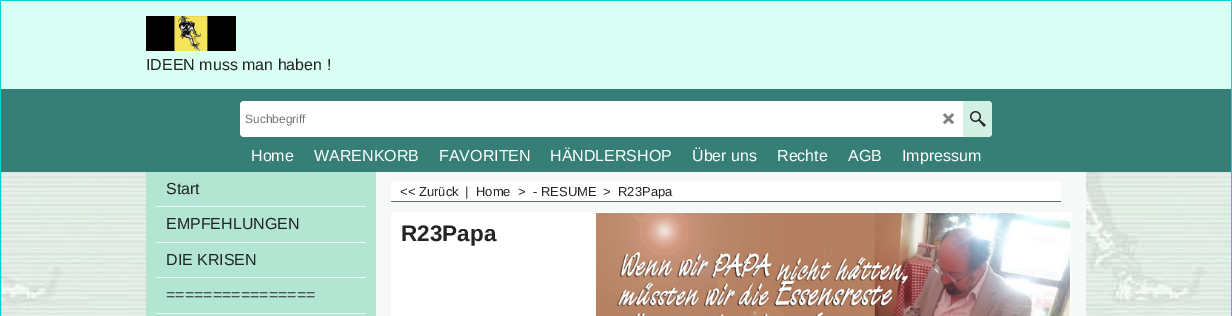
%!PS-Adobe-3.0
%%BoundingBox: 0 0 1232 316
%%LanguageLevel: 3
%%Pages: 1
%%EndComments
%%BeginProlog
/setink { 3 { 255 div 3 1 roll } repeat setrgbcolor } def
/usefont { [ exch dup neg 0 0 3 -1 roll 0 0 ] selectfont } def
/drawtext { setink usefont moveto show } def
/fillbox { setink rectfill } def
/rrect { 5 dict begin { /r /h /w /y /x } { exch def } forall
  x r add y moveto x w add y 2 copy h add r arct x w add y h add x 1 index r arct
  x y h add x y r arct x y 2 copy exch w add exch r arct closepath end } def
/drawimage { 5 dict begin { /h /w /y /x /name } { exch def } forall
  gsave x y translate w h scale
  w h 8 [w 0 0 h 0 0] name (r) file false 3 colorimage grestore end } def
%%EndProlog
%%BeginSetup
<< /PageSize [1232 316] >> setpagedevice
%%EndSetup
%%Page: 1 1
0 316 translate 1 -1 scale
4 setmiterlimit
0 0 1232 316 255 255 255 fillbox
(assets/img1.rgb) 1 172 1230 144 drawimage
0 212 212 setink
0.5 0.5 1231 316 rectstroke
1 1 1230 88 218 255 245 fillbox
(assets/img2.rgb) 146 16 90 35 drawimage
(IDEEN muss man haben !) 146 70 /LiberationSans-Regular 16 36 36 36 drawtext
1 89 1230 83 54 127 118 fillbox
255 255 255 setink
240 101 752 36 4 rrect fill
(Suchbegriff) 245 123 /LiberationSans-Regular 12 117 117 117 drawtext
(assets/img3.rgb) 943 113 11 12 drawimage
211 240 229 setink
963 101 moveto 988 101 lineto 990 101 992 103 992 105 curveto 992 133 lineto 992 135 990 137 988 137 curveto 963 137 lineto closepath fill
(assets/img4.rgb) 970 111 16 16 drawimage
(Home) 251 161 /LiberationSans-Regular 16 255 255 255 drawtext
(WARENKORB) 314 161 /LiberationSans-Regular 16 255 255 255 drawtext
(FAVORITEN) 439 161 /LiberationSans-Regular 16 255 255 255 drawtext
(HÄNDLERSHOP) 550 161 /LiberationSans-Regular 16 255 255 255 drawtext
(Über uns) 692 161 /LiberationSans-Regular 16 255 255 255 drawtext
(Rechte) 777 161 /LiberationSans-Regular 16 255 255 255 drawtext
(AGB) 848 161 /LiberationSans-Regular 16 255 255 255 drawtext
(Impressum) 902 161 /LiberationSans-Regular 16 255 255 255 drawtext
376 172 710 144 247 249 249 fillbox
146 172 230 144 178 230 211 fillbox
156 206 210 1 228 251 255 fillbox
(Start) 166 194 /LiberationSans-Regular 16 36 36 36 drawtext
156 242 210 1 228 251 255 fillbox
(EMPFEHLUNGEN) 166 229 /LiberationSans-Regular 16 36 36 36 drawtext
156 277 210 1 228 251 255 fillbox
(DIE KRISEN) 166 265 /LiberationSans-Regular 16 36 36 36 drawtext
156 313 210 1 228 251 255 fillbox
(================) 166 300 /LiberationSans-Regular 16 36 36 36 drawtext
391 182 670 19 255 255 255 fillbox
391 201 670 1 98 109 102 fillbox
(<< Zurück) 400 196 /LiberationSans-Regular 13 36 36 36 drawtext
(|) 465 196 /LiberationSans-Regular 13 36 36 36 drawtext
(Home) 476 196 /LiberationSans-Regular 13 36 36 36 drawtext
(>) 518 196 /LiberationSans-Regular 13 36 36 36 drawtext
(- RESUME) 533 196 /LiberationSans-Regular 13 36 36 36 drawtext
(>) 603 196 /LiberationSans-Regular 13 36 36 36 drawtext
(R23Papa) 618 196 /LiberationSans-Regular 13 36 36 36 drawtext
391 212 680 104 255 255 255 fillbox
(R23Papa) 401 241 /LiberationSans-Bold 22.5 36 36 36 drawtext
(assets/img5.rgb) 596 213 474 103 drawimage
showpage
%%EOF
